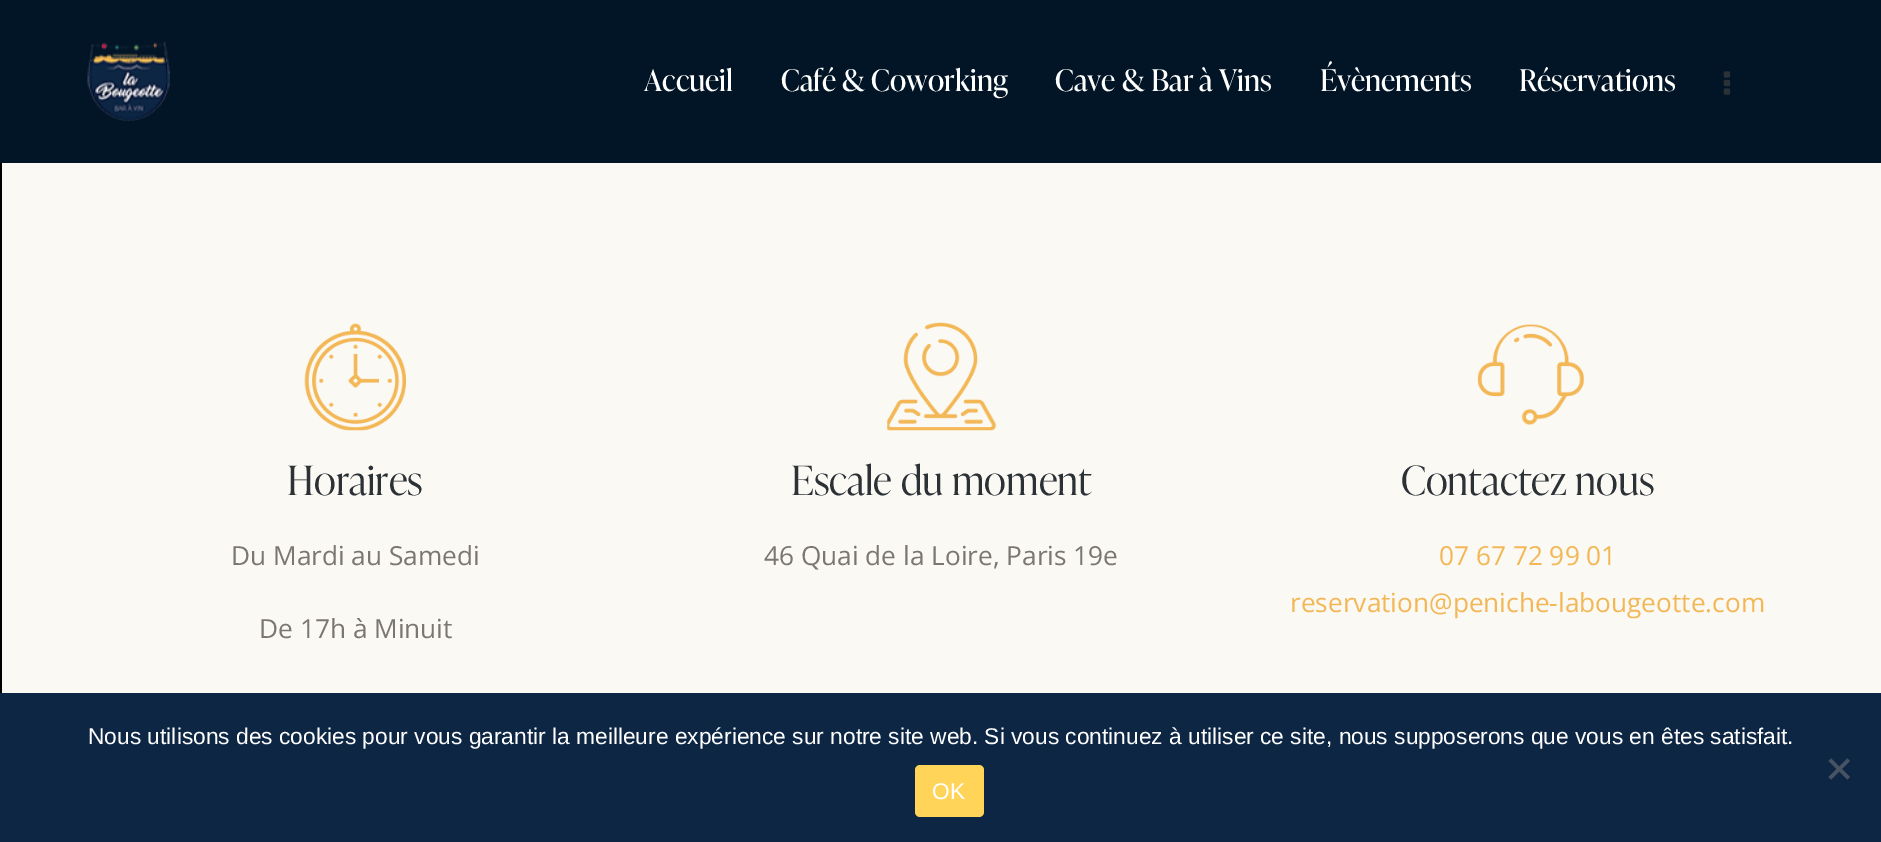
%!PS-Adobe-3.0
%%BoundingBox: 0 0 1881 842
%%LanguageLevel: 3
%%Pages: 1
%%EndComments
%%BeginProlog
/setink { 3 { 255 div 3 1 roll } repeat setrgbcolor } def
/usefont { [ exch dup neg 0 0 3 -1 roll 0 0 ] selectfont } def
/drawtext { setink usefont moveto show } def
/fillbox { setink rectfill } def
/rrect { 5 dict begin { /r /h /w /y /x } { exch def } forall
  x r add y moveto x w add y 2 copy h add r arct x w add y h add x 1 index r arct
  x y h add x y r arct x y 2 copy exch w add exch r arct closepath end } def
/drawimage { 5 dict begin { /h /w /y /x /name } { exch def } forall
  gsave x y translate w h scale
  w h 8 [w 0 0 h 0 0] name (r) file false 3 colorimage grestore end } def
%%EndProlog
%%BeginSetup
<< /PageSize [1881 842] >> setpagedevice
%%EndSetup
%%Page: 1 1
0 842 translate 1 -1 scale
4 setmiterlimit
0 0 1881 842 250 249 244 fillbox
0 0 1881 163 2 21 38 fillbox
(assets/img1.rgb) 87 41 83 80 drawimage
(Accueil) 644 91 /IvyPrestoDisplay-Regular 29.75 255 255 255 drawtext
(Café & Coworking) 781 91 /IvyPrestoDisplay-Regular 29.75 255 255 255 drawtext
(Cave & Bar à Vins) 1055 91 /IvyPrestoDisplay-Regular 29.75 255 255 255 drawtext
(Évènements) 1320 91 /IvyPrestoDisplay-Regular 29.75 255 255 255 drawtext
(Réservations) 1519 91 /IvyPrestoDisplay-Regular 29.75 255 255 255 drawtext
(assets/img2.rgb) 1723 71 8 24 drawimage
0 163 2 530 0 0 0 fillbox
(assets/img3.rgb) 304 323 102 108 drawimage
(Horaires) 287 495 /IvyPrestoDisplay-Light 40.25 44 49 54 drawtext
(Du Mardi au Samedi) 231 565 /OpenSans-Regular 26.25 124 118 115 drawtext
(De 17h à Minuit) 259 638 /OpenSans-Regular 26.25 124 118 115 drawtext
(assets/img4.rgb) 887 322 109 109 drawimage
(Escale du moment) 791 495 /IvyPrestoDisplay-Light 40.25 44 49 54 drawtext
(46 Quai de la Loire, Paris 19e) 764 565 /OpenSans-Regular 26.25 124 118 115 drawtext
(assets/img5.rgb) 1477 324 107 101 drawimage
(Contactez nous) 1401 495 /IvyPrestoDisplay-Light 40.25 44 49 54 drawtext
(07 67 72 99 01) 1439 565 /OpenSans-Regular 26.25 243 183 86 drawtext
(reservation@peniche-labougeotte.com) 1290 612 /OpenSans-Regular 26.25 243 183 86 drawtext
0 693 1881 149 13 38 68 fillbox
(Nous utilisons des cookies pour vous garantir la meilleure expérience sur notre site web. Si vous continuez à utiliser ce site, nous supposerons que vous en êtes satisfait.) 88 744 /LiberationSans-Regular 22.75 255 255 255 drawtext
71 83 98 setink
1847.5 758.5 moveto 1850 761 lineto 1831 779.5 lineto 1828.5 777 lineto closepath fill
1828.5 761 moveto 1831 758.5 lineto 1850 777 lineto 1847.5 779.5 lineto closepath fill
255 212 88 setink
915 765 69 52 5 rrect fill
(OK) 932 799 /LiberationSans-Regular 22.75 255 255 255 drawtext
showpage
%%EOF
